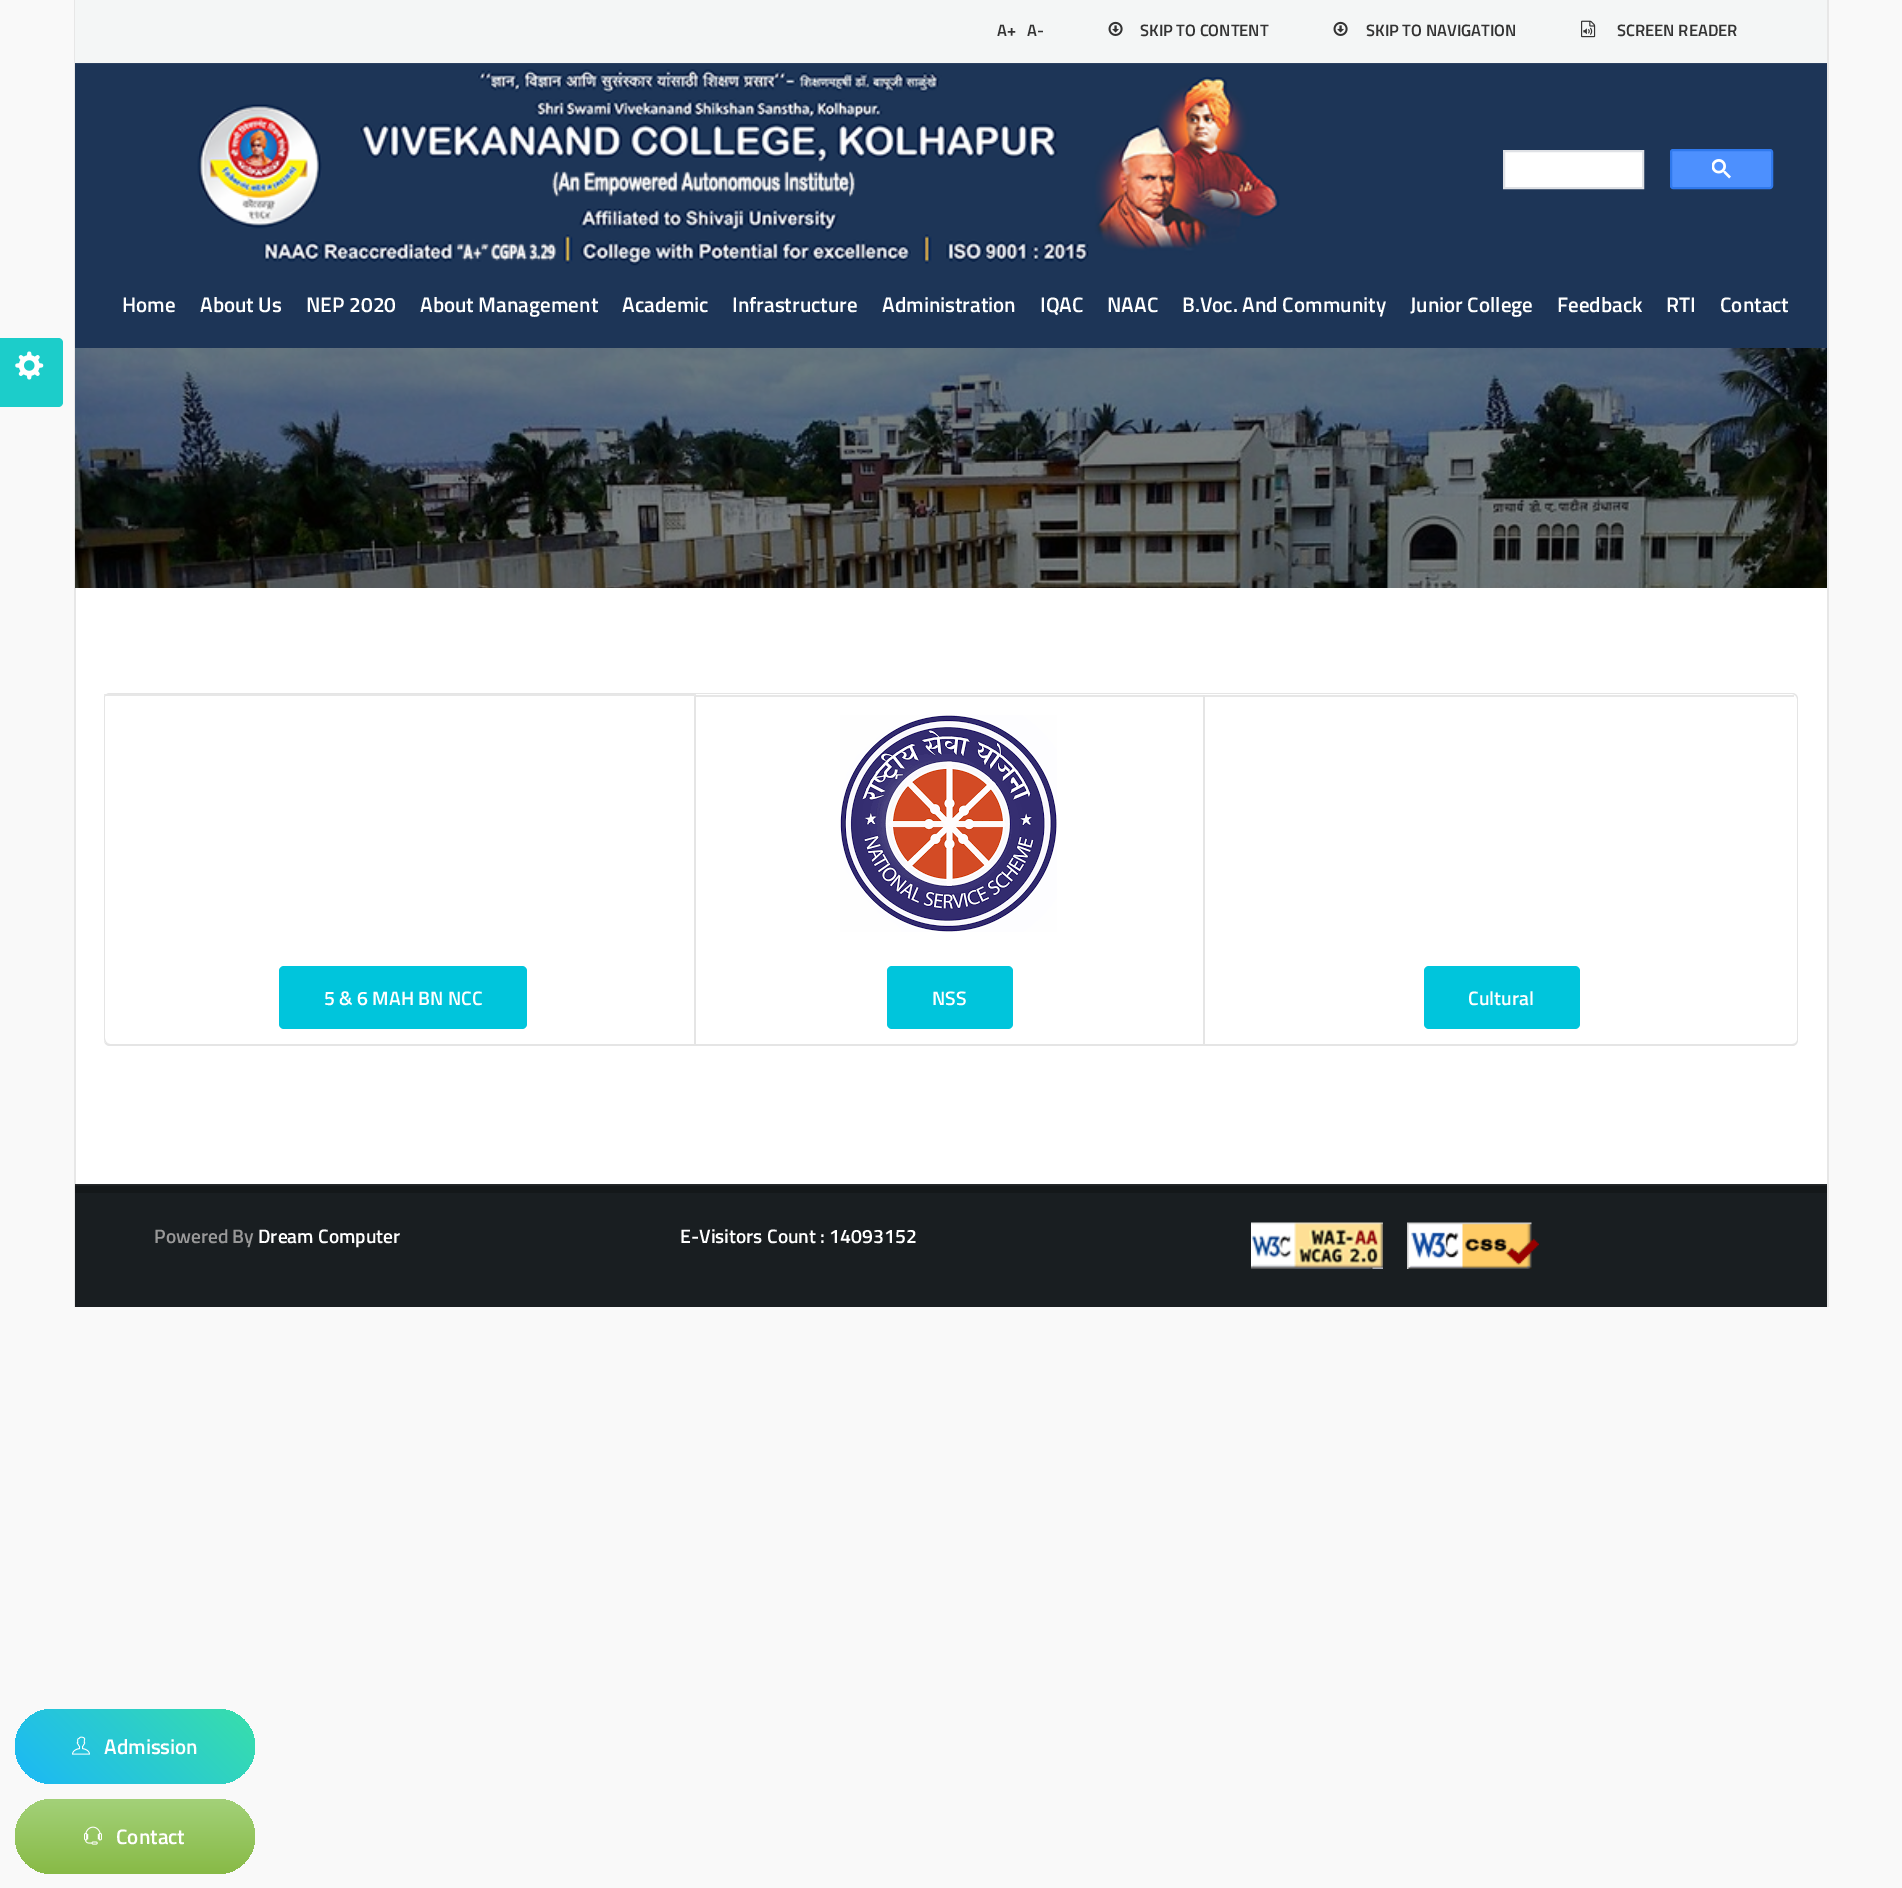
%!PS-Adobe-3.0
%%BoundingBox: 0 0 1902 1888
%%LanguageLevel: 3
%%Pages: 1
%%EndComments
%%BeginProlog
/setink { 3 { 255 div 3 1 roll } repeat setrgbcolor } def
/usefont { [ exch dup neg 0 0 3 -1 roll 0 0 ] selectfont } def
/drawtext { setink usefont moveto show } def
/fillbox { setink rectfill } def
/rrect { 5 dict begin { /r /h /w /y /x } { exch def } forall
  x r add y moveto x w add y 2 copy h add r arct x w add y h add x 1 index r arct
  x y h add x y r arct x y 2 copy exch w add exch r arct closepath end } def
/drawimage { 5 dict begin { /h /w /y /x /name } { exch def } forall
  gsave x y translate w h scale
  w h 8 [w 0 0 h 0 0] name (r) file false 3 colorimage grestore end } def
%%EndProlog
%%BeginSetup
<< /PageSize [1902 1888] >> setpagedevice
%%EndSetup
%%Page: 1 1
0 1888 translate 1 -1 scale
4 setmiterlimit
0 0 1902 1888 249 249 249 fillbox
28 205 202 setink
-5 338 moveto 58 338 lineto 61 338 63 340 63 343 curveto 63 402 lineto 63 405 61 407 58 407 curveto -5 407 lineto closepath fill
(assets/img1.rgb) 15 351 29 29 drawimage
76 588 1751 596 255 255 255 fillbox
1827 0 2 1307 231 231 231 fillbox
74 0 2 1307 231 231 231 fillbox
75 0 1752 62 244 246 246 fillbox
75 62 1752 1 245 247 247 fillbox
(A+) 997 36 /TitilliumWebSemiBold-SemiBold 16.5 51 51 51 drawtext
(A-) 1027 36 /TitilliumWebSemiBold-SemiBold 16.5 51 51 51 drawtext
(assets/img2.rgb) 1108 21 15 15 drawimage
(SKIP TO CONTENT) 1140 36 /TitilliumWebSemiBold-SemiBold 16.5 51 51 51 drawtext
(assets/img2.rgb) 1333 21 15 15 drawimage
(SKIP TO NAVIGATION) 1366 36 /TitilliumWebSemiBold-SemiBold 16.5 51 51 51 drawtext
(assets/img3.rgb) 1581 20 15 18 drawimage
(SCREEN READER) 1617 36 /TitilliumWebSemiBold-SemiBold 16.5 51 51 51 drawtext
75 64 1752 284 29 53 87 fillbox
75 63 1752 1 43 65 97 fillbox
(assets/img4.rgb) 197 69 1083 197 drawimage
255 255 255 setink
1504 151 moveto 1643 151 lineto 1643 188 lineto 1504 188 lineto closepath gsave fill grestore
223 225 229 setink
2 setlinewidth
stroke
77 144 254 setink
1671 150 101 38 2 rrect gsave fill grestore
48 121 237 setink
stroke
(assets/img5.rgb) 1712 159 19 20 drawimage
(Home) 122 312 /TitilliumWebSemiBold-SemiBold 21 255 255 255 drawtext
(About Us) 200 312 /TitilliumWebSemiBold-SemiBold 21 255 255 255 drawtext
(NEP 2020) 306 312 /TitilliumWebSemiBold-SemiBold 21 255 255 255 drawtext
(About Management) 420 312 /TitilliumWebSemiBold-SemiBold 21 255 255 255 drawtext
(Academic) 622 312 /TitilliumWebSemiBold-SemiBold 21 255 255 255 drawtext
(Infrastructure) 732 312 /TitilliumWebSemiBold-SemiBold 21 255 255 255 drawtext
(Administration) 882 312 /TitilliumWebSemiBold-SemiBold 21 255 255 255 drawtext
(IQAC) 1040 312 /TitilliumWebSemiBold-SemiBold 21 255 255 255 drawtext
(NAAC) 1107 312 /TitilliumWebSemiBold-SemiBold 21 255 255 255 drawtext
(B.Voc. And Community) 1182 312 /TitilliumWebSemiBold-SemiBold 21 255 255 255 drawtext
(Junior College) 1410 312 /TitilliumWebSemiBold-SemiBold 21 255 255 255 drawtext
(Feedback) 1557 312 /TitilliumWebSemiBold-SemiBold 21 255 255 255 drawtext
(RTI) 1666 312 /TitilliumWebSemiBold-SemiBold 21 255 255 255 drawtext
(Contact) 1720 312 /TitilliumWebSemiBold-SemiBold 21 255 255 255 drawtext
(assets/img6.rgb) 75 348 1752 240 drawimage
229 229 229 setink
110 693 moveto 1792 693 lineto 1796 693 1798 696 1798 699 curveto 1798 1040 lineto 1798 1043 1796 1046 1792 1046 curveto 110 1046 lineto 106 1046 104 1043 104 1040 curveto 104 699 lineto 104 696 106 693 110 693 curveto closepath 110 694 moveto 1792 694 lineto 1795 694 1797 697 1797 699 curveto 1797 1040 lineto 1797 1042 1795 1044 1792 1044 curveto 110 1044 lineto 106 1044 104 1042 104 1040 curveto 104 699 lineto 104 697 106 694 110 694 curveto closepath eofill
231 231 231 setink
105 696 moveto 104 694 lineto 696 694 lineto 694 696 lineto closepath fill
229 229 229 setink
696 694 moveto 694 696 lineto 694 1044 lineto 696 1044 lineto closepath fill
105 696 moveto 104 695 lineto 104 1038 lineto 104 1041 106 1044 110 1044 curveto 107 1044 105 1041 105 1038 curveto closepath fill
0 197 220 setink
279 966 248 63 5 rrect fill
(5 & 6 MAH BN NCC) 324 1005 /TitilliumWebSemiBold-SemiBold 19.5 255 255 255 drawtext
696 695 1098 2 231 231 231 fillbox
1203 695 2 349 229 229 229 fillbox
(assets/img7.rgb) 840 715 217 217 drawimage
0 197 220 setink
887 966 126 63 5 rrect fill
(NSS) 932 1005 /TitilliumWebSemiBold-SemiBold 19.5 255 255 255 drawtext
0 197 220 setink
1424 966 156 63 5 rrect fill
(Cultural) 1468 1005 /TitilliumWebSemiBold-SemiBold 19.5 255 255 255 drawtext
75 1193 1752 114 25 30 33 fillbox
75 1186 1752 7 20 24 26 fillbox
75 1184 1752 1 37 41 44 fillbox
75 1185 1752 1 30 33 35 fillbox
(Powered By) 154 1243 /TitilliumWebSemiBold-SemiBold 19.5 152 152 152 drawtext
(Dream Computer) 258 1243 /TitilliumWebSemiBold-SemiBold 19.5 255 255 255 drawtext
(E-Visitors Count : 14093152) 680 1243 /TitilliumWebSemiBold-SemiBold 19.5 255 255 255 drawtext
(assets/img8.rgb) 1251 1222 132 47 drawimage
(assets/img9.rgb) 1407 1222 132 47 drawimage
gsave 15 1709 240 75 37.5 rrect clip newpath
<< /ShadingType 2 /ColorSpace /DeviceRGB /Coords [56 1825 214 1667] /Extend [true true] /Function << /FunctionType 3 /Domain [0 1] /Functions [<< /FunctionType 2 /Domain [0 1] /C0 [0.118 0.733 0.941] /C1 [0.118 0.733 0.941] /N 1 >> << /FunctionType 2 /Domain [0 1] /C0 [0.118 0.733 0.941] /C1 [0.224 0.875 0.667] /N 1 >>] /Bounds [0.08] /Encode [0 1 0 1] >> >> shfill grestore
(assets/img10.rgb) 72 1736 18 19 drawimage
(Admission) 104 1754 /TitilliumWebSemiBold-SemiBold 21 255 255 255 drawtext
gsave 15 1799 240 75 37.5 rrect clip newpath
<< /ShadingType 2 /ColorSpace /DeviceRGB /Coords [135 1799 135 1874] /Extend [true true] /Function << /FunctionType 2 /Domain [0 1] /C0 [0.639 0.82 0.475] /C1 [0.533 0.729 0.275] /N 1 >> >> shfill grestore
(assets/img11.rgb) 84 1826 18 19 drawimage
(Contact) 116 1844 /TitilliumWebSemiBold-SemiBold 21 255 255 255 drawtext
showpage
%%EOF
